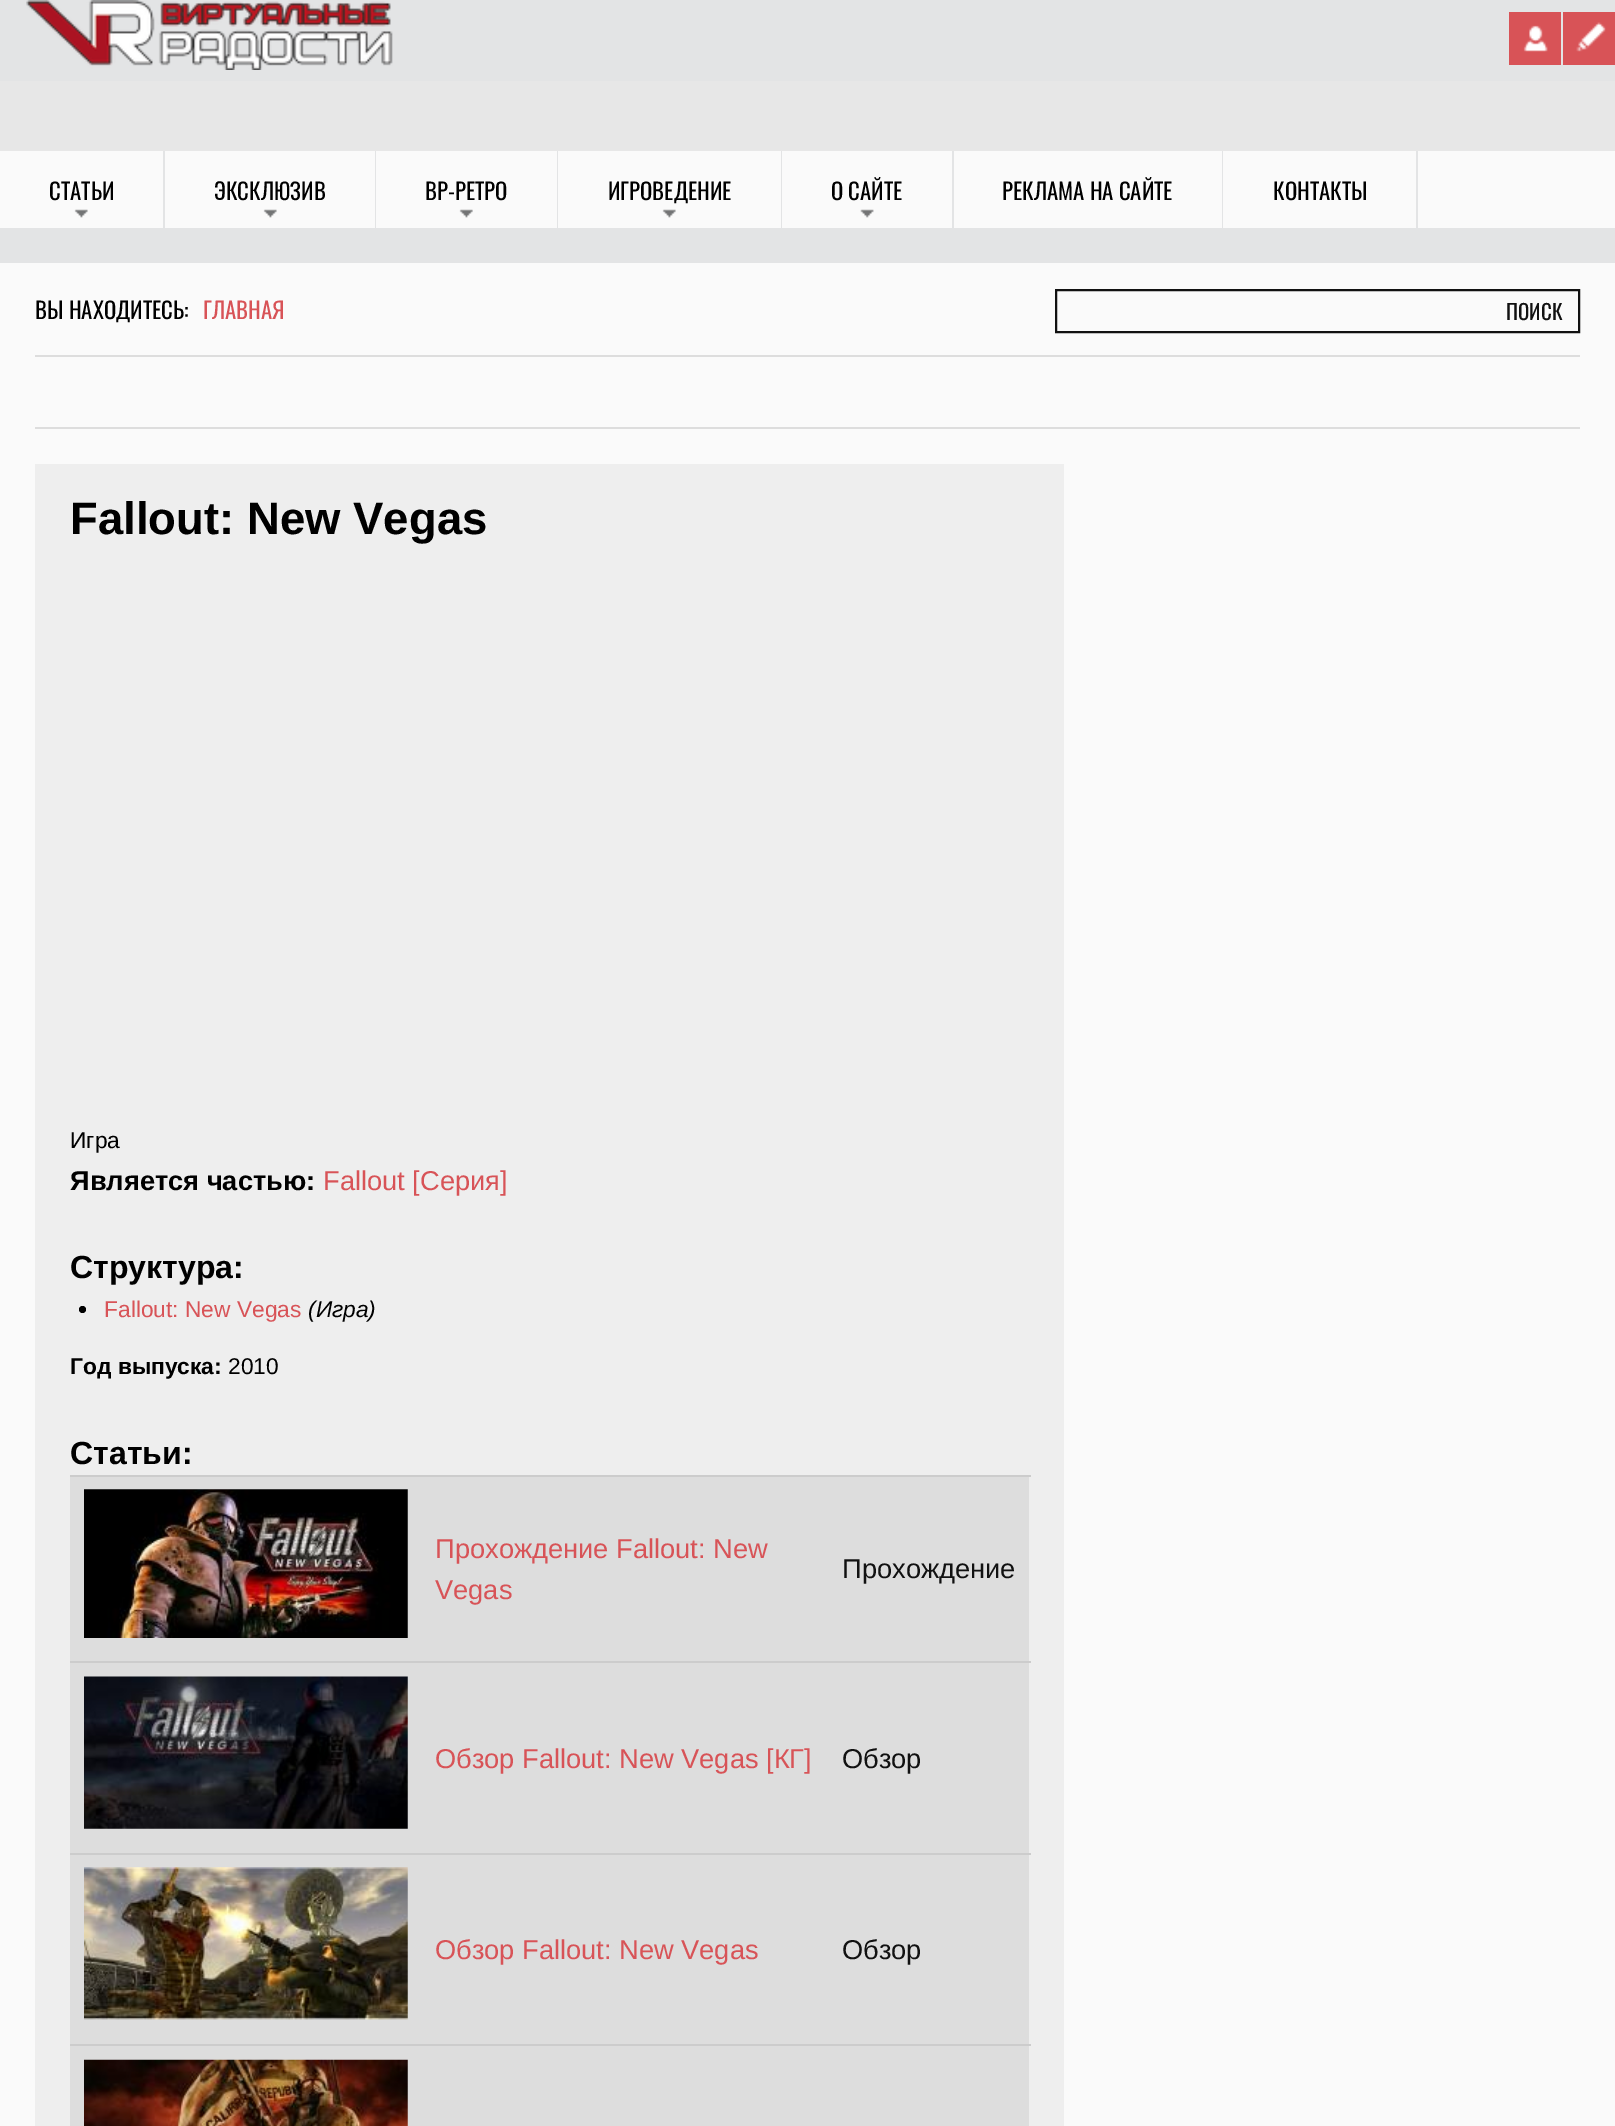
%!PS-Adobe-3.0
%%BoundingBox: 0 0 1615 2126
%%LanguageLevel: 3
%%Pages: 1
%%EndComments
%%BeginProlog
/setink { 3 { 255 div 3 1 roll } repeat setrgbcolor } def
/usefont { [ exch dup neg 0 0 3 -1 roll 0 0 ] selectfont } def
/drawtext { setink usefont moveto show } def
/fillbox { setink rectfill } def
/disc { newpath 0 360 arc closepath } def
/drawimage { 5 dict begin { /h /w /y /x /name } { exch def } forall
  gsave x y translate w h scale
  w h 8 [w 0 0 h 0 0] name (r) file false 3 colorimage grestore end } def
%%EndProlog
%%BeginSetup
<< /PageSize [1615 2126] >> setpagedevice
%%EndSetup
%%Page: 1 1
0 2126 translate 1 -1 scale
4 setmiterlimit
0 0 1615 2126 227 228 229 fillbox
(assets/img1.rgb) 26 0 367 70 drawimage
1509 12 52 53 216 83 87 fillbox
(assets/img2.rgb) 1523 25 25 27 drawimage
1563 12 52 53 216 83 87 fillbox
(assets/img3.rgb) 1576 22 30 30 drawimage
0 81 1615 70 231 231 231 fillbox
0 151 1615 77 250 250 250 fillbox
163 151 2 77 227 228 229 fillbox
(assets/img4.rgb) 74 209 14 9 drawimage
(СТАТЬИ) 49 200 /Oswald-Regular 22.75 0 0 0 drawtext
375 151 1 77 227 228 229 fillbox
(assets/img4.rgb) 263 209 14 9 drawimage
(ЭКСКЛЮЗИВ) 214 200 /Oswald-Regular 22.75 0 0 0 drawtext
557 151 1 77 227 228 229 fillbox
(assets/img5.rgb) 459 209 14 9 drawimage
(ВР-РЕТРО) 425 200 /Oswald-Regular 22.75 0 0 0 drawtext
781 151 1 77 227 228 229 fillbox
(assets/img4.rgb) 662 209 14 9 drawimage
(ИГРОВЕДЕНИЕ) 608 200 /Oswald-Regular 22.75 0 0 0 drawtext
952 151 2 77 227 228 229 fillbox
(assets/img6.rgb) 860 209 14 9 drawimage
(О САЙТЕ) 831 200 /Oswald-Regular 22.75 0 0 0 drawtext
1222 151 1 77 227 228 229 fillbox
(РЕКЛАМА НА САЙТЕ) 1002 200 /Oswald-Regular 22.75 0 0 0 drawtext
1416 151 2 77 227 228 229 fillbox
(КОНТАКТЫ) 1273 200 /Oswald-Regular 22.75 0 0 0 drawtext
0 263 1615 1863 250 250 250 fillbox
(ВЫ НАХОДИТЕСЬ:) 35 319 /Oswald-Regular 22.75 0 0 0 drawtext
(ГЛАВНАЯ) 203 319 /Oswald-Regular 22.75 216 83 87 drawtext
17 17 17 setink
2 setlinewidth
1056 290 523 42 rectstroke
(ПОИСК) 1506 320 /Oswald-Regular 21 17 17 17 drawtext
35 427 1545 2 221 221 221 fillbox
35 355 1545 2 221 221 221 fillbox
35 464 1029 1662 238 238 238 fillbox
(Fallout: New Vegas) 70 534 /LiberationSans-Bold 45.5 0 0 0 drawtext
(Игра) 70 1148 /LiberationSans-Regular 22.75 0 0 0 drawtext
(Является частью:) 70 1190 /LiberationSans-Bold 27.25 0 0 0 drawtext
(Fallout [Серия]) 323 1190 /LiberationSans-Regular 27.25 216 83 87 drawtext
(Структура:) 70 1278 /LiberationSans-Bold 32 0 0 0 drawtext
82.5 1309.5 3.5 disc fill
(Fallout: New Vegas) 104 1317 /LiberationSans-Regular 22.75 216 83 87 drawtext
(\(Игра\)) 308 1317 /LiberationSans-Italic 22.75 0 0 0 drawtext
(Год выпуска:) 70 1374 /LiberationSans-Bold 22.75 0 0 0 drawtext
(2010) 228 1374 /LiberationSans-Regular 22.75 0 0 0 drawtext
(Статьи:) 70 1464 /LiberationSans-Bold 32 0 0 0 drawtext
70 1475 961 2 204 204 204 fillbox
70 1661 961 2 204 204 204 fillbox
70 1477 959 184 221 221 221 fillbox
(assets/img7.rgb) 84 1489 324 149 drawimage
(Прохождение Fallout: New) 435 1558 /LiberationSans-Regular 27.25 216 83 87 drawtext
(Vegas) 435 1599 /LiberationSans-Regular 27.25 216 83 87 drawtext
(Прохождение) 842 1578 /LiberationSans-Regular 27.25 17 17 17 drawtext
70 1853 961 2 204 204 204 fillbox
70 1663 959 190 221 221 221 fillbox
(assets/img8.rgb) 84 1676 324 153 drawimage
(Обзор Fallout: New Vegas [КГ]) 435 1768 /LiberationSans-Regular 27.25 216 83 87 drawtext
(Обзор) 842 1768 /LiberationSans-Regular 27.25 17 17 17 drawtext
70 2044 961 2 204 204 204 fillbox
70 1855 959 189 221 221 221 fillbox
(assets/img9.rgb) 84 1867 324 153 drawimage
(Обзор Fallout: New Vegas) 435 1959 /LiberationSans-Regular 27.25 216 83 87 drawtext
(Обзор) 842 1959 /LiberationSans-Regular 27.25 17 17 17 drawtext
70 2046 959 80 221 221 221 fillbox
(assets/img10.rgb) 84 2059 324 67 drawimage
showpage
%%EOF
